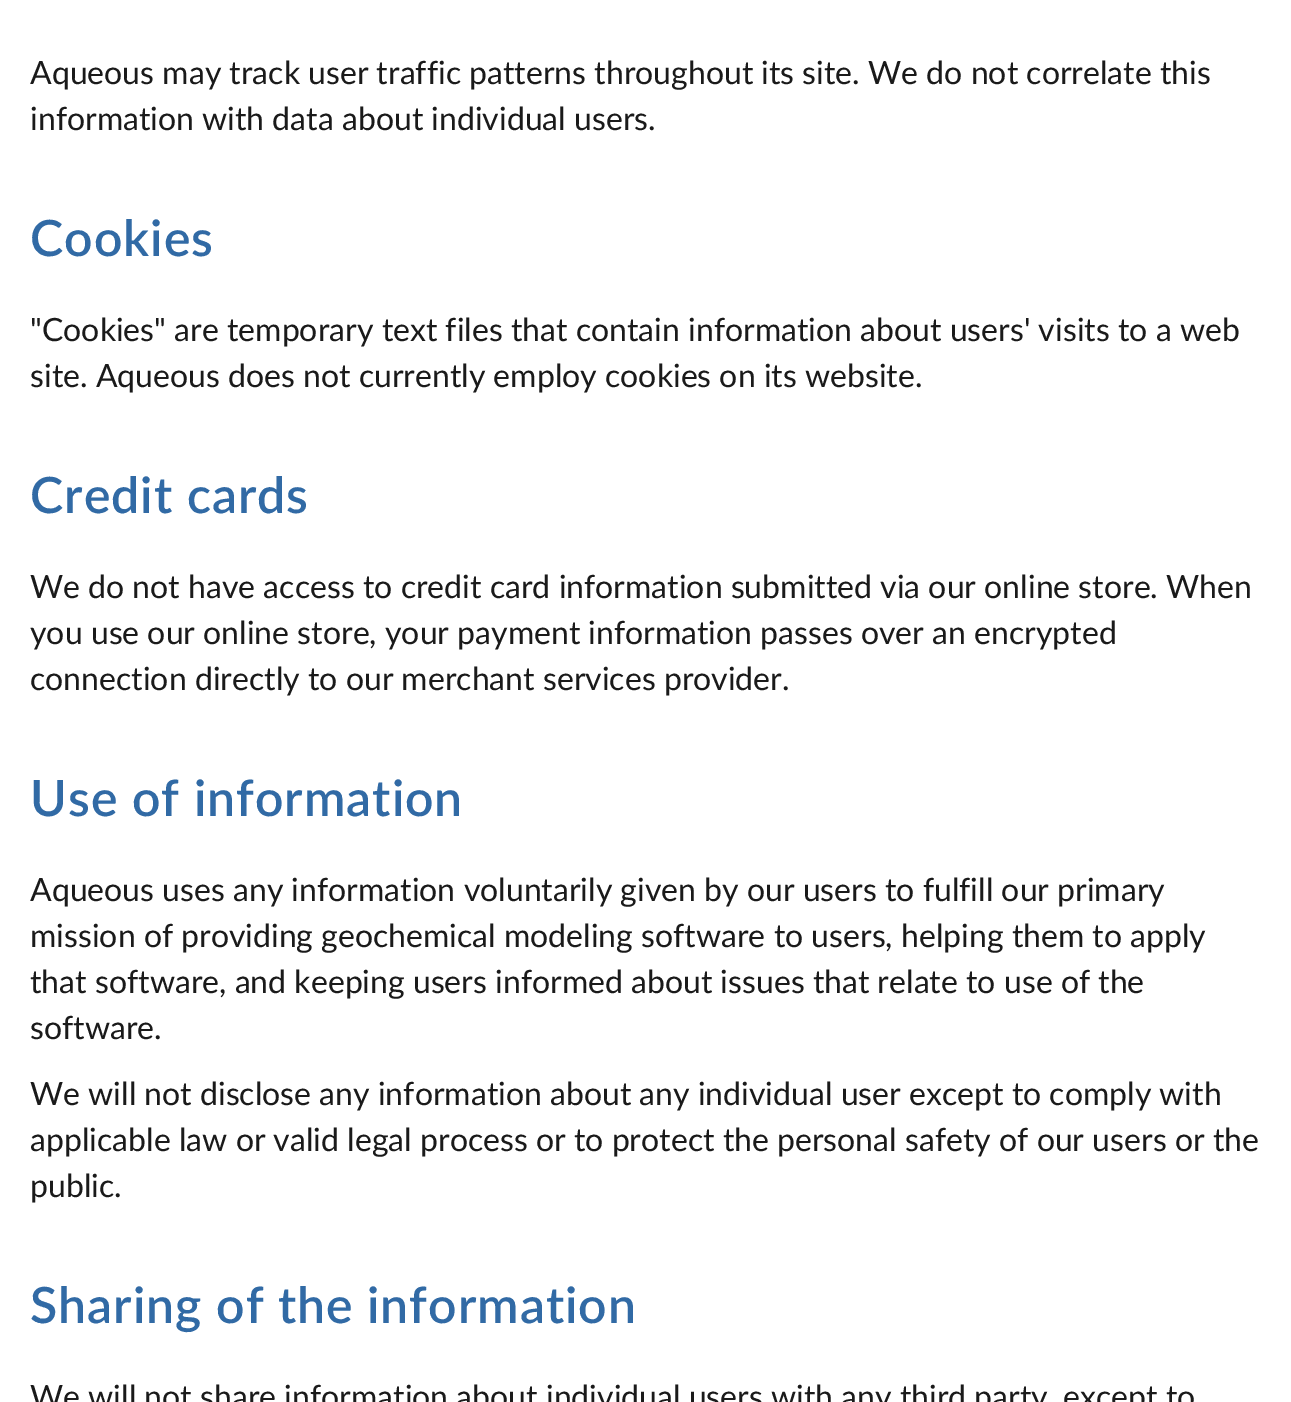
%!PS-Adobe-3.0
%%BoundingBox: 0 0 1291 1402
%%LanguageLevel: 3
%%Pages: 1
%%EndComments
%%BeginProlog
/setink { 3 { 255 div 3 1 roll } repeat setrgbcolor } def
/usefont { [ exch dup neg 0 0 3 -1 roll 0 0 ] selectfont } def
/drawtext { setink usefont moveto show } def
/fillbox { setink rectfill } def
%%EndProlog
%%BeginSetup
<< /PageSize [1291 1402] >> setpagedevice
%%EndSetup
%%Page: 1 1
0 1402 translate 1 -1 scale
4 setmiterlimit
0 0 1291 1402 255 255 255 fillbox
(Aqueous may track user traffic patterns throughout its site. We do not correlate this) 30 84 /Lato-Regular 32 26 26 26 drawtext
(information with data about individual users.) 30 130 /Lato-Regular 32 26 26 26 drawtext
/Lato-SemiBold 50 usefont
49 106 165 setink
30 256 moveto 1 0 (Cookies) ashow
("Cookies" are temporary text files that contain information about users' visits to a web) 30 341 /Lato-Regular 32 26 26 26 drawtext
(site. Aqueous does not currently employ cookies on its website.) 30 387 /Lato-Regular 32 26 26 26 drawtext
/Lato-SemiBold 50 usefont
49 106 165 setink
30 513 moveto 1 0 (Credit cards) ashow
(We do not have access to credit card information submitted via our online store. When) 30 598 /Lato-Regular 32 26 26 26 drawtext
(you use our online store, your payment information passes over an encrypted) 30 644 /Lato-Regular 32 26 26 26 drawtext
(connection directly to our merchant services provider.) 30 690 /Lato-Regular 32 26 26 26 drawtext
/Lato-SemiBold 50 usefont
49 106 165 setink
30 816 moveto 1 0 (Use of information) ashow
(Aqueous uses any information voluntarily given by our users to fulfill our primary) 30 901 /Lato-Regular 32 26 26 26 drawtext
(mission of providing geochemical modeling software to users, helping them to apply) 30 947 /Lato-Regular 32 26 26 26 drawtext
(that software, and keeping users informed about issues that relate to use of the) 30 993 /Lato-Regular 32 26 26 26 drawtext
(software.) 30 1039 /Lato-Regular 32 26 26 26 drawtext
(We will not disclose any information about any individual user except to comply with) 30 1105 /Lato-Regular 32 26 26 26 drawtext
(applicable law or valid legal process or to protect the personal safety of our users or the) 30 1151 /Lato-Regular 32 26 26 26 drawtext
(public.) 30 1197 /Lato-Regular 32 26 26 26 drawtext
/Lato-SemiBold 50 usefont
49 106 165 setink
30 1323 moveto 1 0 (Sharing of the information) ashow
(We will not share information about individual users with any third party, except to) 30 1408 /Lato-Regular 32 26 26 26 drawtext
showpage
%%EOF
